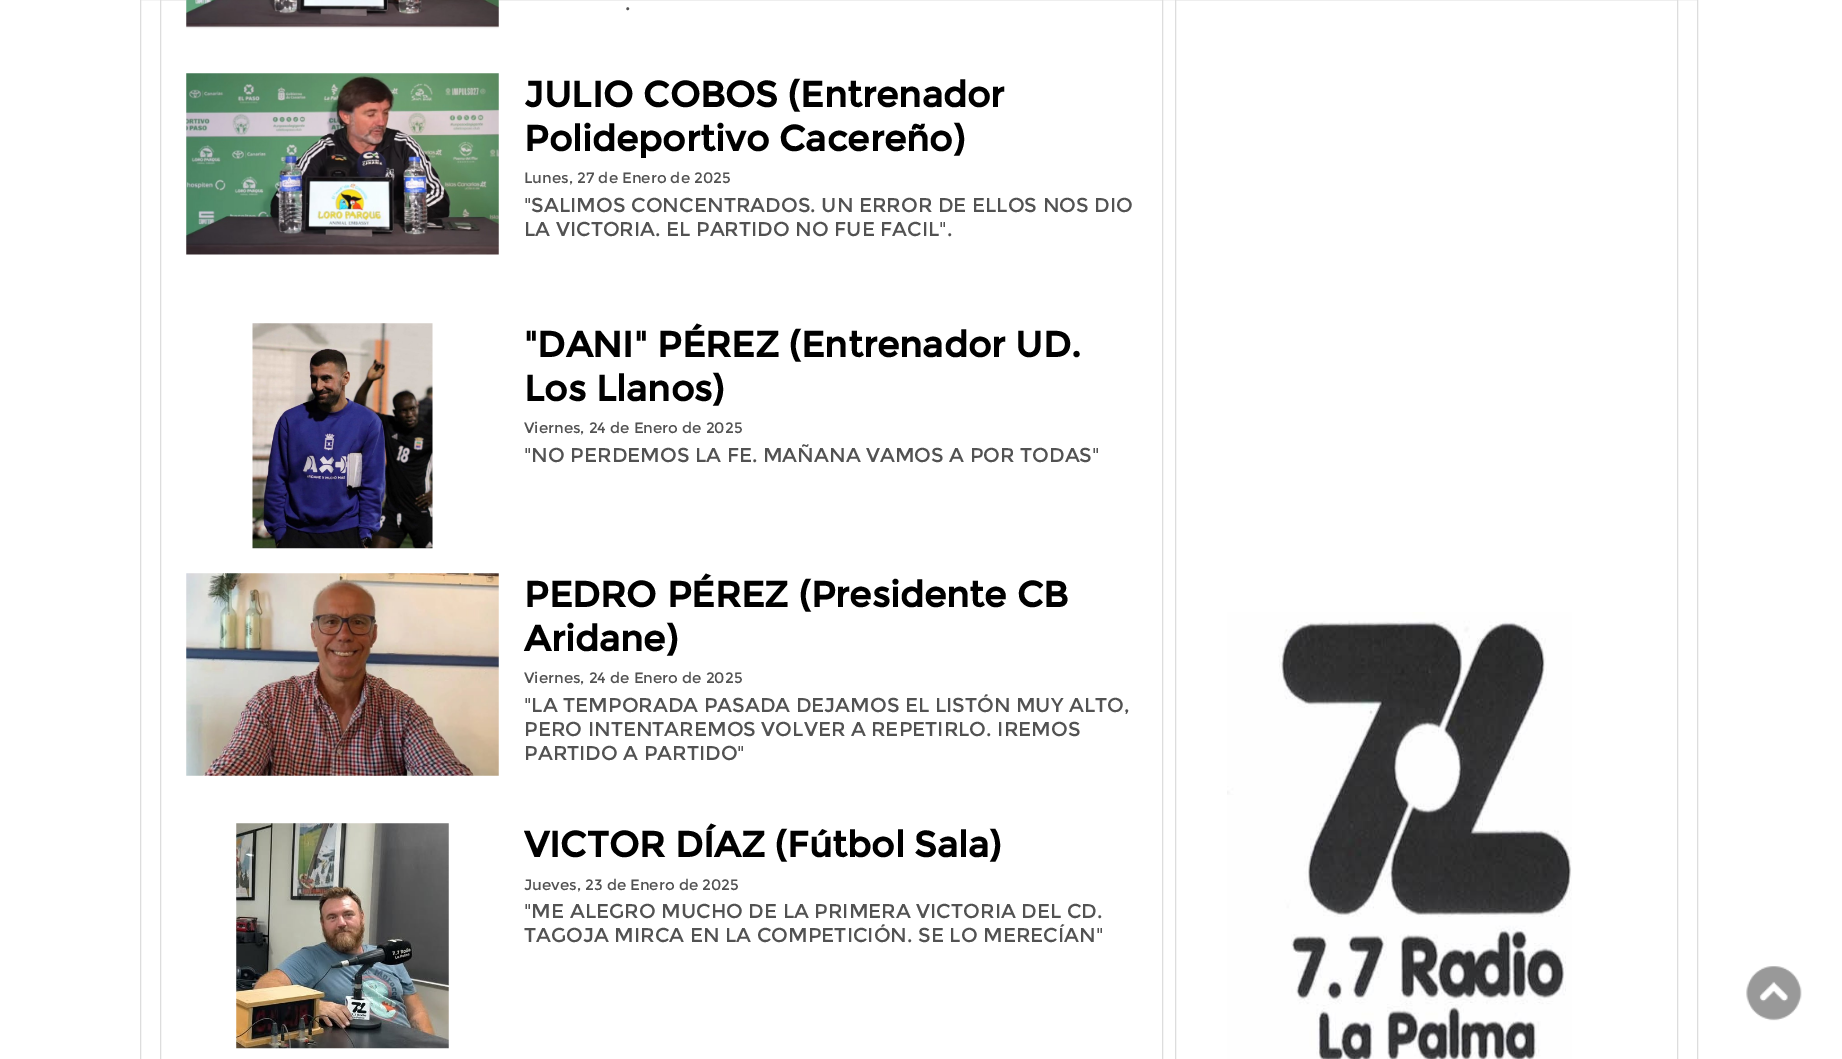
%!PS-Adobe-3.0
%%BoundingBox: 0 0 1842 1059
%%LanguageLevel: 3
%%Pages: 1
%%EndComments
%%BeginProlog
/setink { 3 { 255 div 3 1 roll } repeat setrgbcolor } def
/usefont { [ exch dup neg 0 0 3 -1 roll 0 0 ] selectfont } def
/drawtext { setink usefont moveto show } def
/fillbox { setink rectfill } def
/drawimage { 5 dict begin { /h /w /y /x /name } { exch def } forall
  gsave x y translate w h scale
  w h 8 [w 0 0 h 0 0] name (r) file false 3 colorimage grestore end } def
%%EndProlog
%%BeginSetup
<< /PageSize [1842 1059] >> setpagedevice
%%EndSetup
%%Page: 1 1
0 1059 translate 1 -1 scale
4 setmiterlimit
0 0 1842 1059 255 255 255 fillbox
221 221 221 setink
140.5 -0.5 1557 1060 rectstroke
160.5 -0.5 1002 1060 rectstroke
(assets/img1.rgb) 186 0 313 29 drawimage
(.) 625 10 /Montserrat-Regular 20 82 82 82 drawtext
(assets/img2.rgb) 186 73 313 182 drawimage
(JULIO COBOS \(Entrenador) 524 107 /Montserrat-Bold 36 0 0 0 drawtext
(Polideportivo Cacereño\)) 524 151 /Montserrat-Bold 36 0 0 0 drawtext
(Lunes, 27 de Enero de 2025) 524 183 /Montserrat-Regular 15 82 82 82 drawtext
("SALIMOS CONCENTRADOS. UN ERROR DE ELLOS NOS DIO) 524 212 /Montserrat-Regular 20 82 82 82 drawtext
(LA VICTORIA. EL PARTIDO NO FUE FACIL".) 524 236 /Montserrat-Regular 20 82 82 82 drawtext
(assets/img3.rgb) 252 323 181 226 drawimage
("DANI" PÉREZ \(Entrenador UD.) 524 357 /Montserrat-Bold 36 0 0 0 drawtext
(Los Llanos\)) 524 401 /Montserrat-Bold 36 0 0 0 drawtext
(Viernes, 24 de Enero de 2025) 524 433 /Montserrat-Regular 15 82 82 82 drawtext
("NO PERDEMOS LA FE. MAÑANA VAMOS A POR TODAS") 524 462 /Montserrat-Regular 20 82 82 82 drawtext
(assets/img4.rgb) 186 573 313 203 drawimage
(PEDRO PÉREZ \(Presidente CB) 524 607 /Montserrat-Bold 36 0 0 0 drawtext
(Aridane\)) 524 651 /Montserrat-Bold 36 0 0 0 drawtext
(Viernes, 24 de Enero de 2025) 524 683 /Montserrat-Regular 15 82 82 82 drawtext
("LA TEMPORADA PASADA DEJAMOS EL LISTÓN MUY ALTO,) 524 712 /Montserrat-Regular 20 82 82 82 drawtext
(PERO INTENTAREMOS VOLVER A REPETIRLO. IREMOS) 524 736 /Montserrat-Regular 20 82 82 82 drawtext
(PARTIDO A PARTIDO") 524 760 /Montserrat-Regular 20 82 82 82 drawtext
(assets/img5.rgb) 236 823 213 226 drawimage
(VICTOR DÍAZ \(Fútbol Sala\)) 524 857 /Montserrat-Bold 36 0 0 0 drawtext
(Jueves, 23 de Enero de 2025) 524 890 /Montserrat-Regular 15 82 82 82 drawtext
("ME ALEGRO MUCHO DE LA PRIMERA VICTORIA DEL CD.) 524 918 /Montserrat-Regular 20 82 82 82 drawtext
(TAGOJA MIRCA EN LA COMPETICIÓN. SE LO MERECÍAN") 524 942 /Montserrat-Regular 20 82 82 82 drawtext
221 221 221 setink
1175.5 -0.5 502 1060 rectstroke
(assets/img6.rgb) 1227 612 345 447 drawimage
(assets/img7.rgb) 1746 966 56 55 drawimage
showpage
%%EOF
